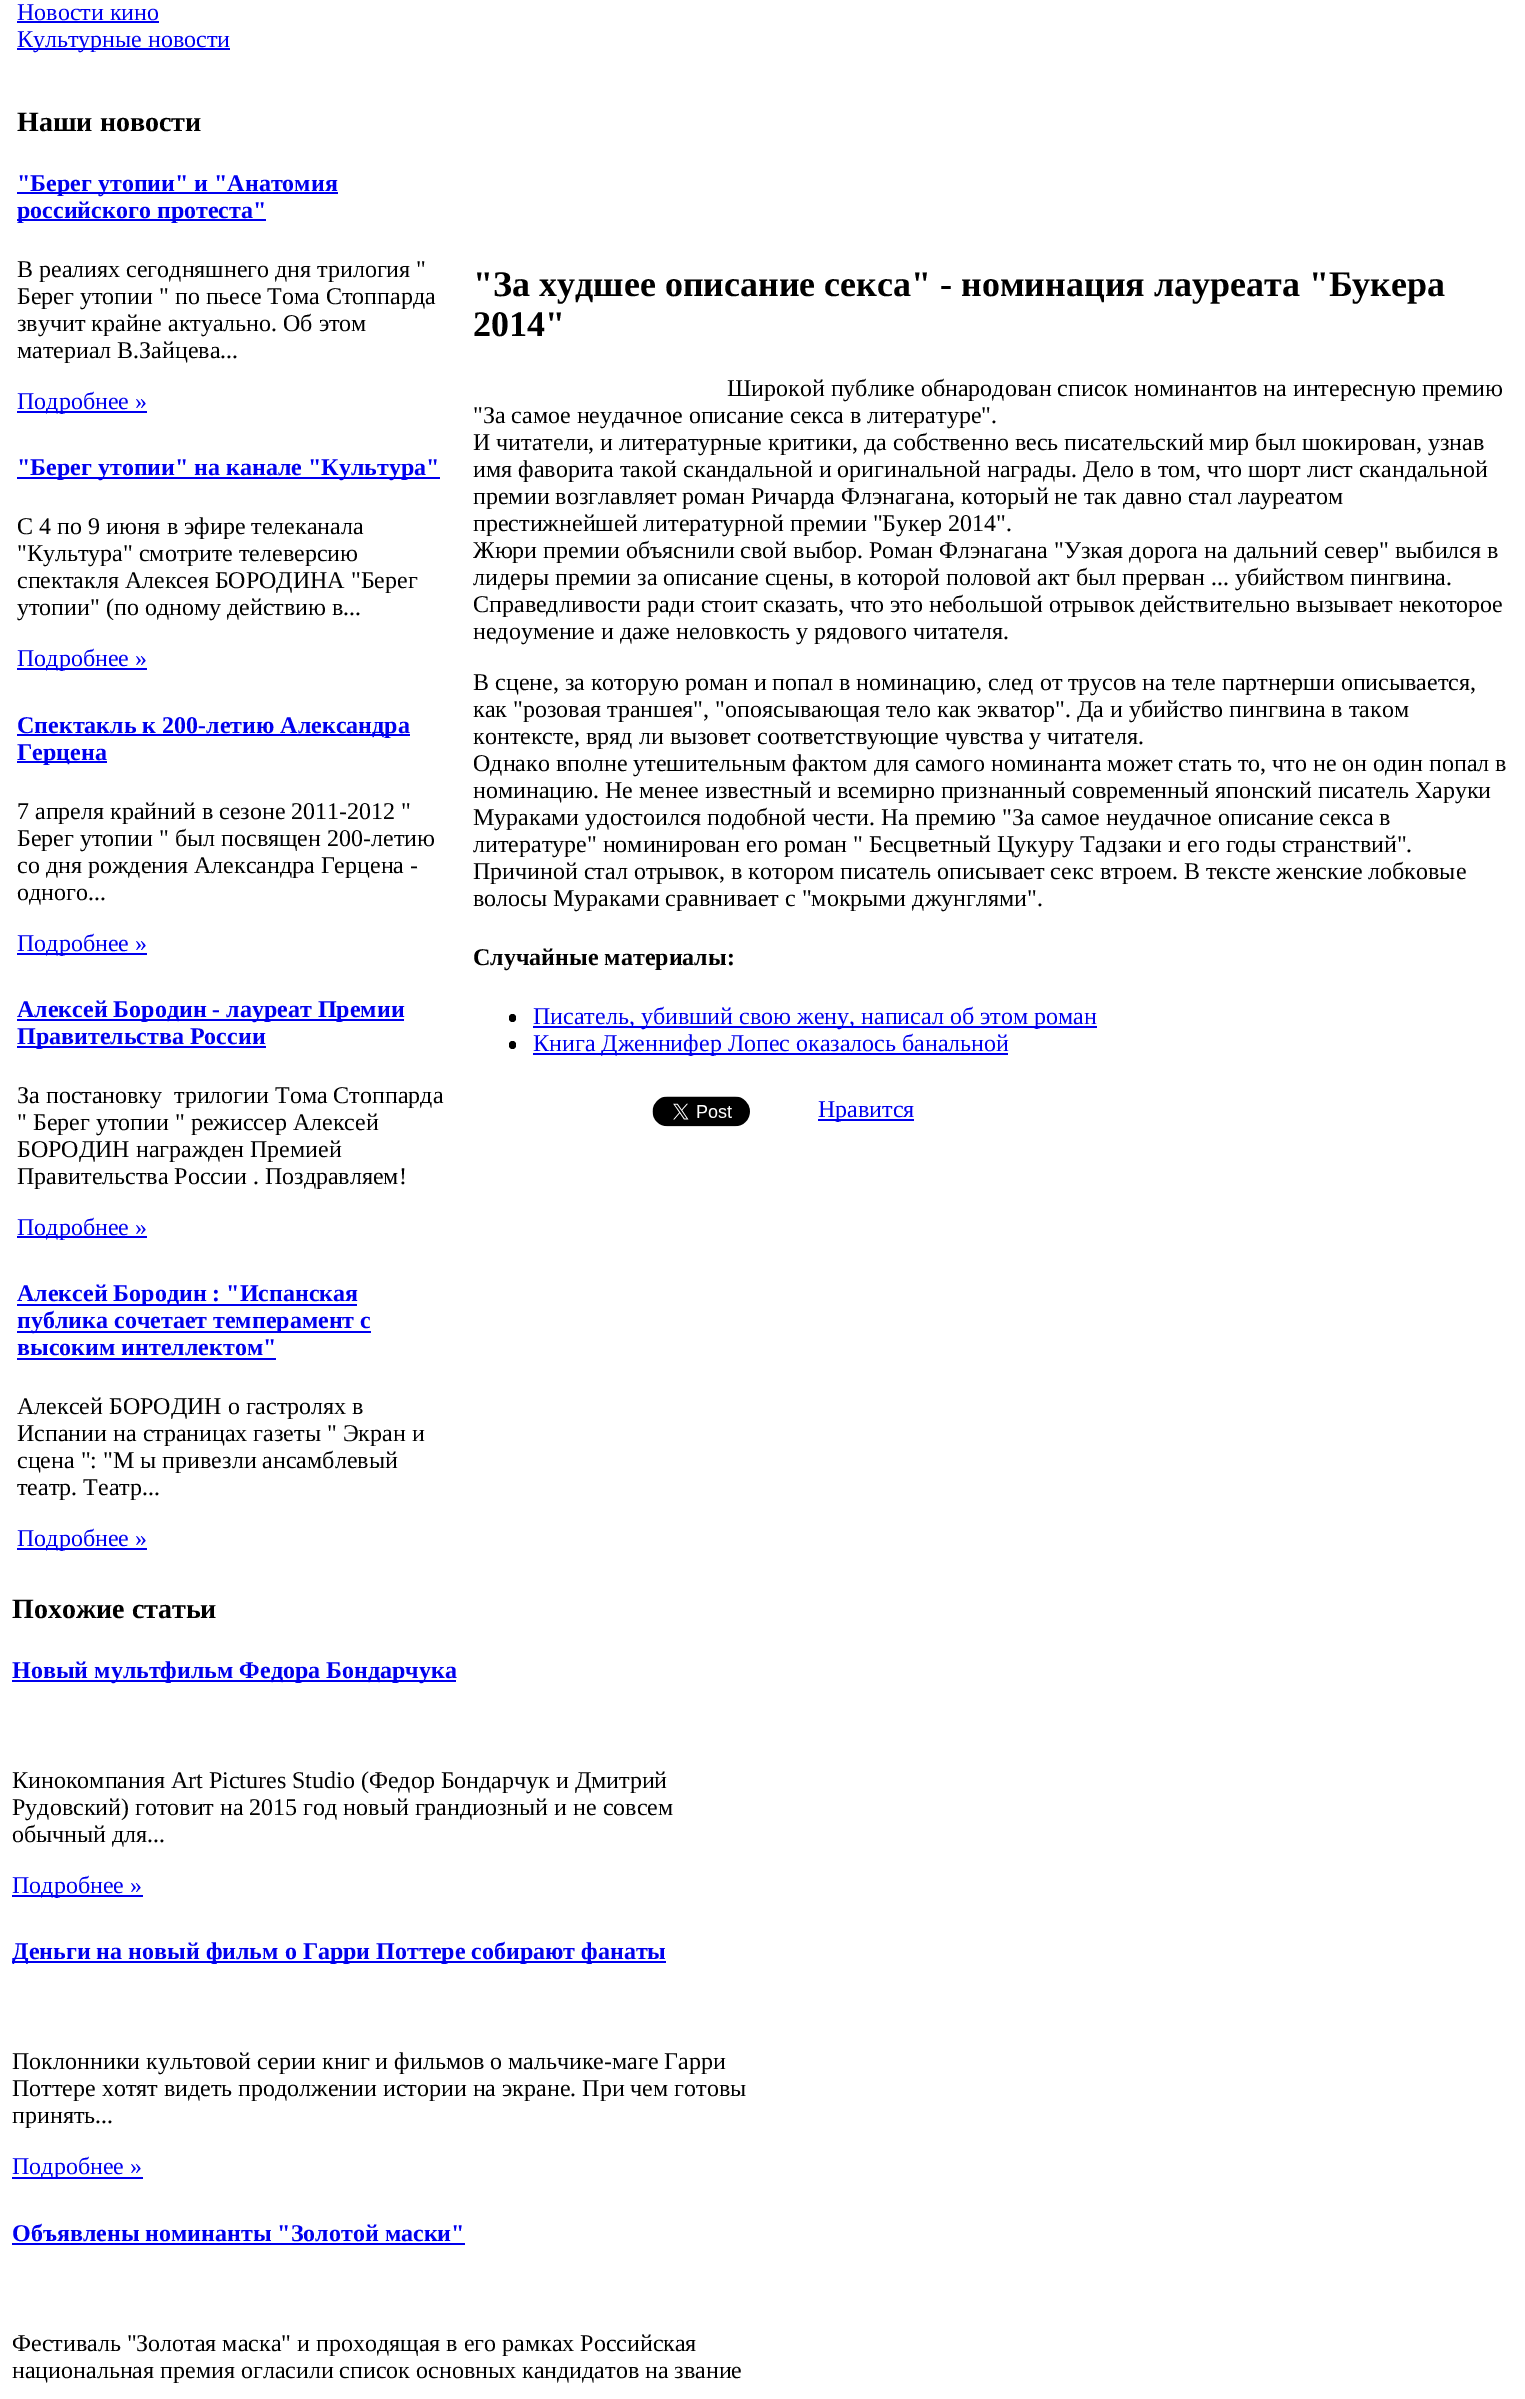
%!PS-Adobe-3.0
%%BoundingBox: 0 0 1525 2399
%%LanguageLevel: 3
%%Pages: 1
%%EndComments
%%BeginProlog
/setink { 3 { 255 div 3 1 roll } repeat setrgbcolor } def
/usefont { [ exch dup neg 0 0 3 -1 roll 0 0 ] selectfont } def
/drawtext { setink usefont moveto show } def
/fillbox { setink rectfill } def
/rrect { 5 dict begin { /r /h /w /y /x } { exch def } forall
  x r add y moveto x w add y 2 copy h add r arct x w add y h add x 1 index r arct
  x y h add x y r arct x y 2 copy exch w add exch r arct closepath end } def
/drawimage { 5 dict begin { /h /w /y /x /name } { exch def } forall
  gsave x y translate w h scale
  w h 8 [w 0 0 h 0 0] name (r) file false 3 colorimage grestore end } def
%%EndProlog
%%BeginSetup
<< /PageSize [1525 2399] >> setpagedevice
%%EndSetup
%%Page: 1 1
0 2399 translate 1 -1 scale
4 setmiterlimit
0 0 1525 2399 255 255 255 fillbox
(Новости кино) 17 20 /LiberationSerif-Regular 24 0 0 238 drawtext
17 21 142 2 0 0 238 fillbox
17 48 213 2 0 0 238 fillbox
(Культурные новости) 17 47 /LiberationSerif-Regular 24 0 0 238 drawtext
(Наши новости) 17 131 /LiberationSerif-Bold 28 0 0 0 drawtext
17 192 321 2 0 0 238 fillbox
("Берег утопии" и "Анатомия) 17 191 /LiberationSerif-Bold 24 0 0 238 drawtext
17 219 249 2 0 0 238 fillbox
(российского протеста") 17 218 /LiberationSerif-Bold 24 0 0 238 drawtext
(В реалиях сегодняшнего дня трилогия ") 17 277 /LiberationSerif-Regular 24 0 0 0 drawtext
(Берег утопии " по пьесе Тома Стоппарда) 17 304 /LiberationSerif-Regular 24 0 0 0 drawtext
(звучит крайне актуально. Об этом) 17 331 /LiberationSerif-Regular 24 0 0 0 drawtext
(материал В.Зайцева...) 17 358 /LiberationSerif-Regular 24 0 0 0 drawtext
17 411 130 2 0 0 238 fillbox
(Подробнее ») 17 409 /LiberationSerif-Regular 24 0 0 238 drawtext
17 477 423 2 0 0 238 fillbox
("Берег утопии" на канале "Культура") 17 475 /LiberationSerif-Bold 24 0 0 238 drawtext
(С 4 по 9 июня в эфире телеканала) 17 534 /LiberationSerif-Regular 24 0 0 0 drawtext
("Культура" смотрите телеверсию) 17 561 /LiberationSerif-Regular 24 0 0 0 drawtext
(спектакля Алексея БОРОДИНА "Берег) 17 588 /LiberationSerif-Regular 24 0 0 0 drawtext
(утопии" \(по одному действию в...) 17 615 /LiberationSerif-Regular 24 0 0 0 drawtext
17 668 130 2 0 0 238 fillbox
(Подробнее ») 17 666 /LiberationSerif-Regular 24 0 0 238 drawtext
17 734 393 2 0 0 238 fillbox
(Спектакль к 200-летию Александра) 17 733 /LiberationSerif-Bold 24 0 0 238 drawtext
17 761 90 2 0 0 238 fillbox
(Герцена) 17 760 /LiberationSerif-Bold 24 0 0 238 drawtext
(7 апреля крайний в сезоне 2011-2012 ") 17 819 /LiberationSerif-Regular 24 0 0 0 drawtext
(Берег утопии " был посвящен 200-летию) 17 846 /LiberationSerif-Regular 24 0 0 0 drawtext
(со дня рождения Александра Герцена -) 17 873 /LiberationSerif-Regular 24 0 0 0 drawtext
(одного...) 17 900 /LiberationSerif-Regular 24 0 0 0 drawtext
17 953 130 2 0 0 238 fillbox
(Подробнее ») 17 951 /LiberationSerif-Regular 24 0 0 238 drawtext
17 1019 387 2 0 0 238 fillbox
(Алексей Бородин - лауреат Премии) 17 1017 /LiberationSerif-Bold 24 0 0 238 drawtext
17 1046 249 2 0 0 238 fillbox
(Правительства России) 17 1044 /LiberationSerif-Bold 24 0 0 238 drawtext
(За постановку  трилогии Тома Стоппарда) 17 1103 /LiberationSerif-Regular 24 0 0 0 drawtext
(" Берег утопии " режиссер Алексей) 17 1130 /LiberationSerif-Regular 24 0 0 0 drawtext
(БОРОДИН награжден Премией) 17 1157 /LiberationSerif-Regular 24 0 0 0 drawtext
(Правительства России . Поздравляем!) 17 1184 /LiberationSerif-Regular 24 0 0 0 drawtext
17 1236 130 2 0 0 238 fillbox
(Подробнее ») 17 1235 /LiberationSerif-Regular 24 0 0 238 drawtext
17 1304 340 2 0 0 238 fillbox
(Алексей Бородин : "Испанская) 17 1301 /LiberationSerif-Bold 24 0 0 238 drawtext
17 1331 354 2 0 0 238 fillbox
(публика сочетает темперамент с) 17 1328 /LiberationSerif-Bold 24 0 0 238 drawtext
(высоким интеллектом") 17 1355 /LiberationSerif-Bold 24 0 0 238 drawtext
17 1358 259 2 0 0 238 fillbox
(Алексей БОРОДИН о гастролях в) 17 1414 /LiberationSerif-Regular 24 0 0 0 drawtext
(Испании на страницах газеты " Экран и) 17 1441 /LiberationSerif-Regular 24 0 0 0 drawtext
(сцена ": "М ы привезли ансамблевый) 17 1468 /LiberationSerif-Regular 24 0 0 0 drawtext
(театр. Театр...) 17 1495 /LiberationSerif-Regular 24 0 0 0 drawtext
17 1548 130 2 0 0 238 fillbox
(Подробнее ») 17 1546 /LiberationSerif-Regular 24 0 0 238 drawtext
("За худшее описание секса" - номинация лауреата "Букера) 473 296 /LiberationSerif-Bold 36 0 0 0 drawtext
(2014") 473 336 /LiberationSerif-Bold 36 0 0 0 drawtext
(Широкой публике обнародован список номинантов на интересную премию) 727 396 /LiberationSerif-Regular 24 0 0 0 drawtext
("За самое неудачное описание секса в литературе".) 473 423 /LiberationSerif-Regular 24 0 0 0 drawtext
(И читатели, и литературные критики, да собственно весь писательский мир был шокирован, узнав) 473 450 /LiberationSerif-Regular 24 0 0 0 drawtext
(имя фаворита такой скандальной и оригинальной награды. Дело в том, что шорт лист скандальной) 473 477 /LiberationSerif-Regular 24 0 0 0 drawtext
(премии возглавляет роман Ричарда Флэнагана, который не так давно стал лауреатом) 473 504 /LiberationSerif-Regular 24 0 0 0 drawtext
(престижнейшей литературной премии "Букер 2014".) 473 531 /LiberationSerif-Regular 24 0 0 0 drawtext
(Жюри премии объяснили свой выбор. Роман Флэнагана "Узкая дорога на дальний север" выбился в) 473 558 /LiberationSerif-Regular 24 0 0 0 drawtext
(лидеры премии за описание сцены, в которой половой акт был прерван ... убийством пингвина.) 473 585 /LiberationSerif-Regular 24 0 0 0 drawtext
(Справедливости ради стоит сказать, что это небольшой отрывок действительно вызывает некоторое) 473 612 /LiberationSerif-Regular 24 0 0 0 drawtext
(недоумение и даже неловкость у рядового читателя.) 473 639 /LiberationSerif-Regular 24 0 0 0 drawtext
(В сцене, за которую роман и попал в номинацию, след от трусов на теле партнерши описывается,) 473 690 /LiberationSerif-Regular 24 0 0 0 drawtext
(как "розовая траншея", "опоясывающая тело как экватор". Да и убийство пингвина в таком) 473 717 /LiberationSerif-Regular 24 0 0 0 drawtext
(контексте, вряд ли вызовет соответствующие чувства у читателя.) 473 744 /LiberationSerif-Regular 24 0 0 0 drawtext
(Однако вполне утешительным фактом для самого номинанта может стать то, что не он один попал в) 473 771 /LiberationSerif-Regular 24 0 0 0 drawtext
(номинацию. Не менее известный и всемирно признанный современный японский писатель Харуки) 473 798 /LiberationSerif-Regular 24 0 0 0 drawtext
(Мураками удостоился подобной чести. На премию "За самое неудачное описание секса в) 473 825 /LiberationSerif-Regular 24 0 0 0 drawtext
(литературе" номинирован его роман " Бесцветный Цукуру Тадзаки и его годы странствий".) 473 852 /LiberationSerif-Regular 24 0 0 0 drawtext
(Причиной стал отрывок, в котором писатель описывает секс втроем. В тексте женские лобковые) 473 879 /LiberationSerif-Regular 24 0 0 0 drawtext
(волосы Мураками сравнивает с "мокрыми джунглями".) 473 906 /LiberationSerif-Regular 24 0 0 0 drawtext
(Случайные материалы:) 473 965 /LiberationSerif-Bold 24 0 0 0 drawtext
509 1014 7 8 3.5 rrect fill
533 1026 564 2 0 0 238 fillbox
(Писатель, убивший свою жену, написал об этом роман) 533 1024 /LiberationSerif-Regular 24 0 0 238 drawtext
0 0 0 setink
509 1041 7 8 3.5 rrect fill
533 1053 475 2 0 0 238 fillbox
(Книга Дженнифер Лопес оказалось банальной) 533 1051 /LiberationSerif-Regular 24 0 0 238 drawtext
(assets/img1.rgb) 652 1096 98 31 drawimage
818 1119 96 2 0 0 238 fillbox
(Нравится) 818 1117 /LiberationSerif-Regular 24 0 0 238 drawtext
(Похожие статьи) 12 1618 /LiberationSerif-Bold 28 0 0 0 drawtext
12 1680 444 2 0 0 238 fillbox
(Новый мультфильм Федора Бондарчука) 12 1678 /LiberationSerif-Bold 24 0 0 238 drawtext
(Кинокомпания Art Pictures Studio \(Федор Бондарчук и Дмитрий) 12 1788 /LiberationSerif-Regular 24 0 0 0 drawtext
(Рудовский\) готовит на 2015 год новый грандиозный и не совсем) 12 1815 /LiberationSerif-Regular 24 0 0 0 drawtext
(обычный для...) 12 1842 /LiberationSerif-Regular 24 0 0 0 drawtext
12 1895 131 2 0 0 238 fillbox
(Подробнее ») 12 1893 /LiberationSerif-Regular 24 0 0 238 drawtext
12 1961 654 2 0 0 238 fillbox
(Деньги на новый фильм о Гарри Поттере собирают фанаты) 12 1959 /LiberationSerif-Bold 24 0 0 238 drawtext
(Поклонники культовой серии книг и фильмов о мальчике-маге Гарри) 12 2069 /LiberationSerif-Regular 24 0 0 0 drawtext
(Поттере хотят видеть продолжении истории на экране. При чем готовы) 12 2096 /LiberationSerif-Regular 24 0 0 0 drawtext
(принять...) 12 2123 /LiberationSerif-Regular 24 0 0 0 drawtext
12 2177 131 2 0 0 238 fillbox
(Подробнее ») 12 2174 /LiberationSerif-Regular 24 0 0 238 drawtext
(Объявлены номинанты "Золотой маски") 12 2241 /LiberationSerif-Bold 24 0 0 238 drawtext
12 2243 453 2 0 0 238 fillbox
(Фестиваль "Золотая маска" и проходящая в его рамках Российская) 12 2351 /LiberationSerif-Regular 24 0 0 0 drawtext
(национальная премия огласили список основных кандидатов на звание) 12 2378 /LiberationSerif-Regular 24 0 0 0 drawtext
showpage
%%EOF
